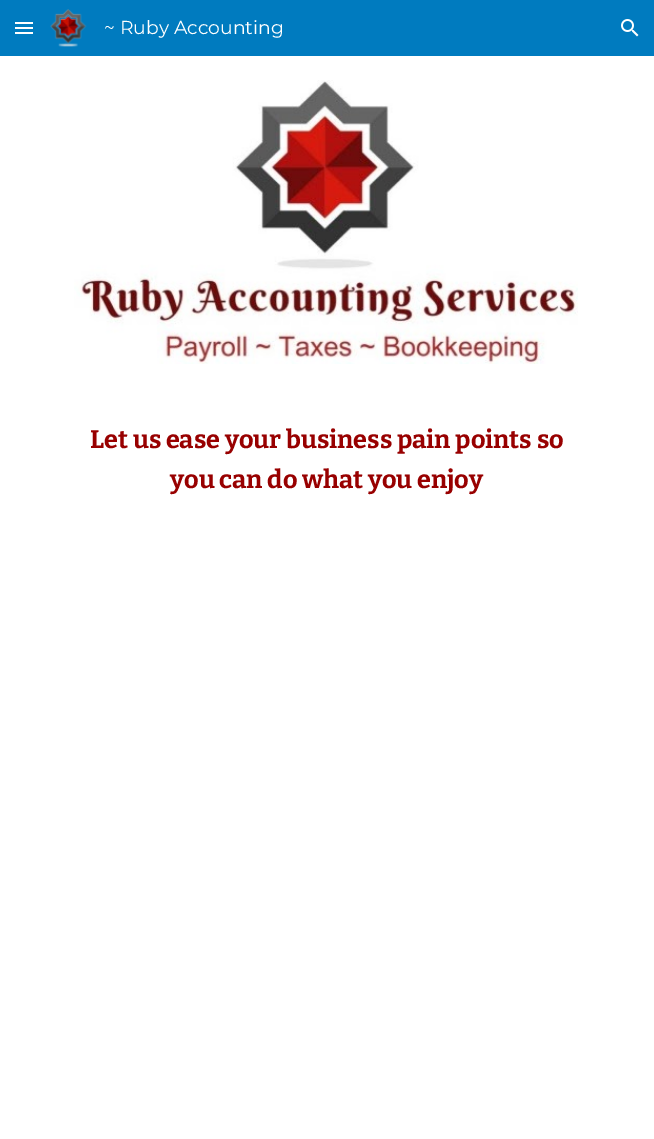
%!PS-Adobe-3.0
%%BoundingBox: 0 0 654 1139
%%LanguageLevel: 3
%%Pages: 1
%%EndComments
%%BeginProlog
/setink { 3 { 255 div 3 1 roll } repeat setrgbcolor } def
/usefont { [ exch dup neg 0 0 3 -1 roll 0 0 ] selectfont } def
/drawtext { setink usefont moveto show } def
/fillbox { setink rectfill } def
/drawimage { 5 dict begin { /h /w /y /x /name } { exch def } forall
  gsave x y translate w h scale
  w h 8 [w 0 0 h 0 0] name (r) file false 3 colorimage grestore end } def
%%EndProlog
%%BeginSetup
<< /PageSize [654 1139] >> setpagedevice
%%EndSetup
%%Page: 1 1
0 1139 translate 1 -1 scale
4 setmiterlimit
0 0 654 1139 255 255 255 fillbox
0 0 654 56 0 123 191 fillbox
15 22 18 2 255 255 255 fillbox
15 27 18 2 255 255 255 fillbox
15 32 18 2 255 255 255 fillbox
(assets/img1.rgb) 50 9 37 38 drawimage
(~ Ruby Accounting) 104 34 /Montserrat-Regular 18.75 255 255 255 drawtext
(assets/img2.rgb) 621 19 18 18 drawimage
(assets/img3.rgb) 74 80 504 284 drawimage
(Let us ease your business pain points so) 90 448 /Bitter-Bold 25.3 152 0 0 drawtext
(you can do what you enjoy) 170 488 /Bitter-Bold 25.3 152 0 0 drawtext
showpage
%%EOF
